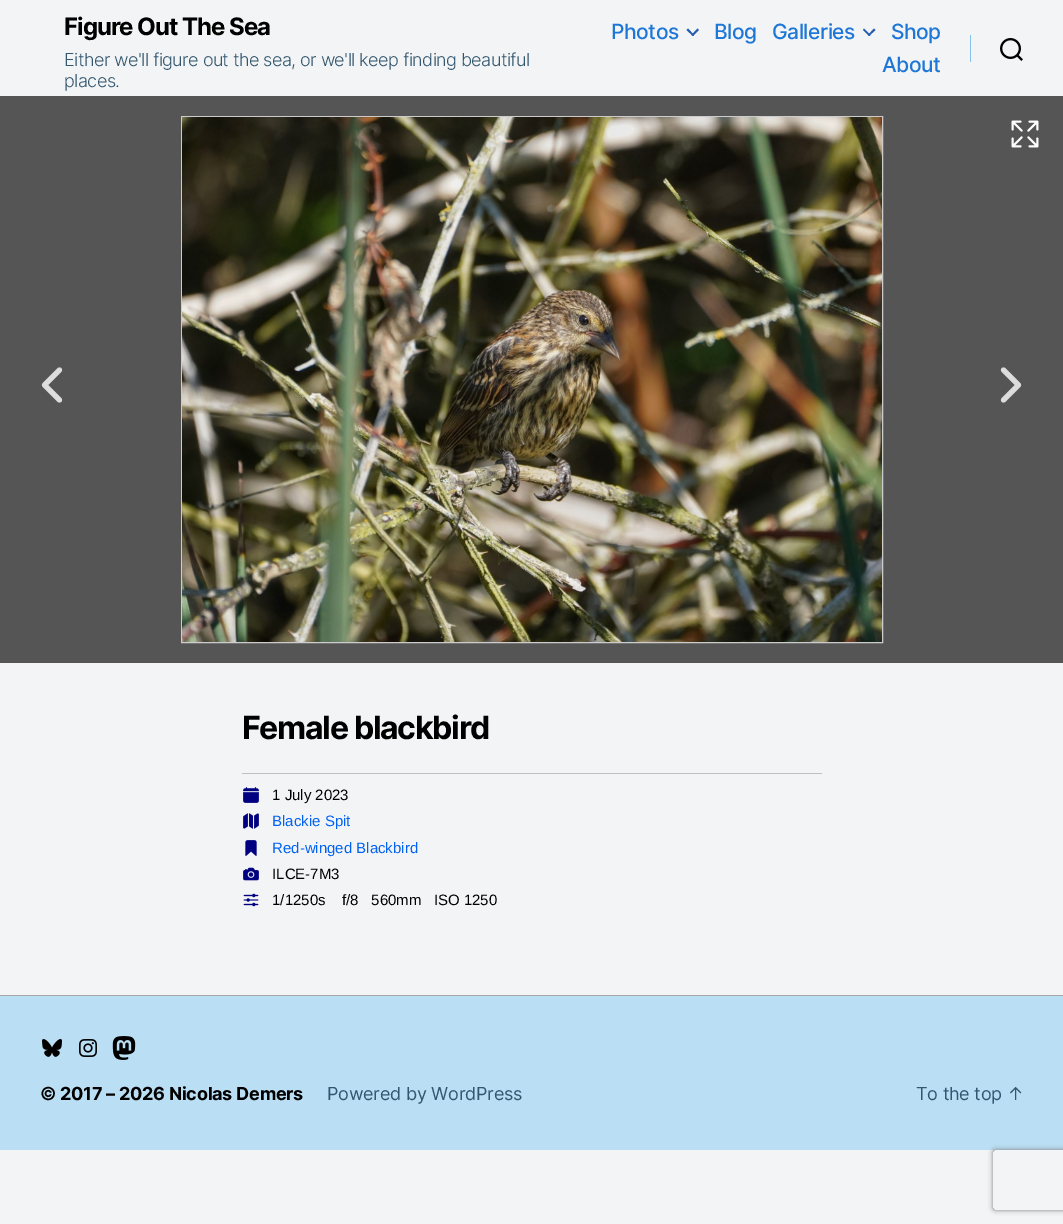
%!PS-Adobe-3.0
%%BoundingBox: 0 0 1063 1224
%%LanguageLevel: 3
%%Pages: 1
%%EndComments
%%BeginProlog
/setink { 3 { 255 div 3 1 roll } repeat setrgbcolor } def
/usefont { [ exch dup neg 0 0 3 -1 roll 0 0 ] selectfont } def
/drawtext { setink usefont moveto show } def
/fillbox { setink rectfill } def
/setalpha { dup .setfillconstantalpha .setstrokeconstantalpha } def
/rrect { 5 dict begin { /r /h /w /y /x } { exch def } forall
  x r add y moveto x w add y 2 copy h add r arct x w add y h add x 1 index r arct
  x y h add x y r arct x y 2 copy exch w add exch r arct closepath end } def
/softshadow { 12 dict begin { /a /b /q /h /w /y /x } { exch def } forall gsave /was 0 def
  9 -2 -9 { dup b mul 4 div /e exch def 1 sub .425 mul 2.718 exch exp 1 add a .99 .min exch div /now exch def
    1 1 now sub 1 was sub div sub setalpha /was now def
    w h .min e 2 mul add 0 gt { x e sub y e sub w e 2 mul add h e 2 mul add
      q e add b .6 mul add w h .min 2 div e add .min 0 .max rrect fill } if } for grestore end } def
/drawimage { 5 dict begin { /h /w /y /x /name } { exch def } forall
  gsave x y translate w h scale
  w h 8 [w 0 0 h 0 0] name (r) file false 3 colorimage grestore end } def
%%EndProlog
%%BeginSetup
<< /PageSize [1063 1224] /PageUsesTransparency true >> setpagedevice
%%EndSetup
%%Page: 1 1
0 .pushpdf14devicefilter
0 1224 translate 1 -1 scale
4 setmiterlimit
0 0 1063 1224 243 244 245 fillbox
/Inter-Bold 24 usefont
0 0 0 setink
64 35 moveto -1 0 (Figure Out The Sea) ashow
/Inter-Light 18 usefont
51 87 111 setink
64 66 moveto -0.55 0 (Either we'll figure out the sea, or we'll keep finding beautiful) ashow
64 87 moveto -0.55 0 (places.) ashow
/Inter-Medium 21 usefont
30 119 214 setink
611 39 moveto -0.5 0 (Photos) ashow
37 93 176 setink
686.5 30 moveto 688 28.5 lineto 694 35 lineto 693 36 lineto closepath fill
691.5 35 moveto 697.5 28.5 lineto 699 30 lineto 693 36 lineto closepath fill
30 119 214 setink
714 39 moveto -0.5 0 (Blog) ashow
772 39 moveto -0.5 0 (Galleries) ashow
37 93 176 setink
863 30 moveto 864 28.5 lineto 870.5 35 lineto 869 36 lineto closepath fill
868 35 moveto 874 28.5 lineto 875.5 30 lineto 869 36 lineto closepath fill
30 119 214 setink
891 39 moveto -0.5 0 (Shop) ashow
882 72 moveto -0.5 0 (About) ashow
970 35 1 27 135 194 232 fillbox
(assets/img1.rgb) 1000 38 23 23 drawimage
0 96 1063 567 85 85 85 fillbox
204 204 204 setink
181.5 116.5 701 526 rectstroke
(assets/img2.rgb) 182 117 700 525 drawimage
(assets/img3.rgb) 1011 120 28 28 drawimage
221 221 221 setink
5.1 setlinewidth
1 setlinecap
1 setlinejoin
59.5 370 moveto 44.5 385 lineto 59.5 400 lineto stroke
1003.5 370 moveto 1018.5 385 lineto 1003.5 400 lineto stroke
/Inter-Bold 32 usefont
0 0 0 setink
242 739 moveto -1.3 0 (Female blackbird) ashow
242 773 580 1 192 192 192 fillbox
(assets/img4.rgb) 243 787 16 16 drawimage
(1 July 2023) 272 800 /LiberationSans-Regular 15 0 0 0 drawtext
(assets/img5.rgb) 243 813 16 16 drawimage
(Blackie Spit) 272 826 /LiberationSans-Regular 15 1 98 243 drawtext
(assets/img6.rgb) 245 840 12 16 drawimage
(Red-winged Blackbird) 272 853 /LiberationSans-Regular 15 1 98 243 drawtext
(assets/img7.rgb) 243 867 16 14 drawimage
(ILCE-7M3) 272 879 /LiberationSans-Regular 15 0 0 0 drawtext
(assets/img8.rgb) 243 893 16 14 drawimage
(1/1250s    f/8   560mm   ISO 1250) 272 905 /LiberationSans-Regular 15 0 0 0 drawtext
0 996 1063 154 186 223 244 fillbox
0 995 1063 1 167 167 168 fillbox
(assets/img9.rgb) 42 1039 20 18 drawimage
(assets/img10.rgb) 79 1039 18 18 drawimage
(assets/img11.rgb) 112 1036 24 24 drawimage
/Inter-Bold 18 usefont
0 0 0 setink
40 1100 moveto -0.25 0 (© 2017 – 2026 Nicolas Demers) ashow
/Inter-Regular 18 usefont
51 87 111 setink
327 1100 moveto -0.25 0 (Powered by WordPress) ashow
916 1100 moveto -0.25 0 (To the top ↑) ashow
gsave
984 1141 moveto 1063 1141 lineto 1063 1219 lineto 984 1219 lineto closepath 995 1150 moveto 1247 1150 lineto 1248 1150 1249 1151 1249 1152 curveto 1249 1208 lineto 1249 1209 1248 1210 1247 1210 curveto 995 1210 lineto 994 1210 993 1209 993 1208 curveto 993 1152 lineto 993 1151 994 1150 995 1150 curveto closepath eoclip newpath
128 128 128 setink
993 1150 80 60 2 2.5 1 softshadow
grestore
.poppdf14devicefilter showpage
%%EOF
